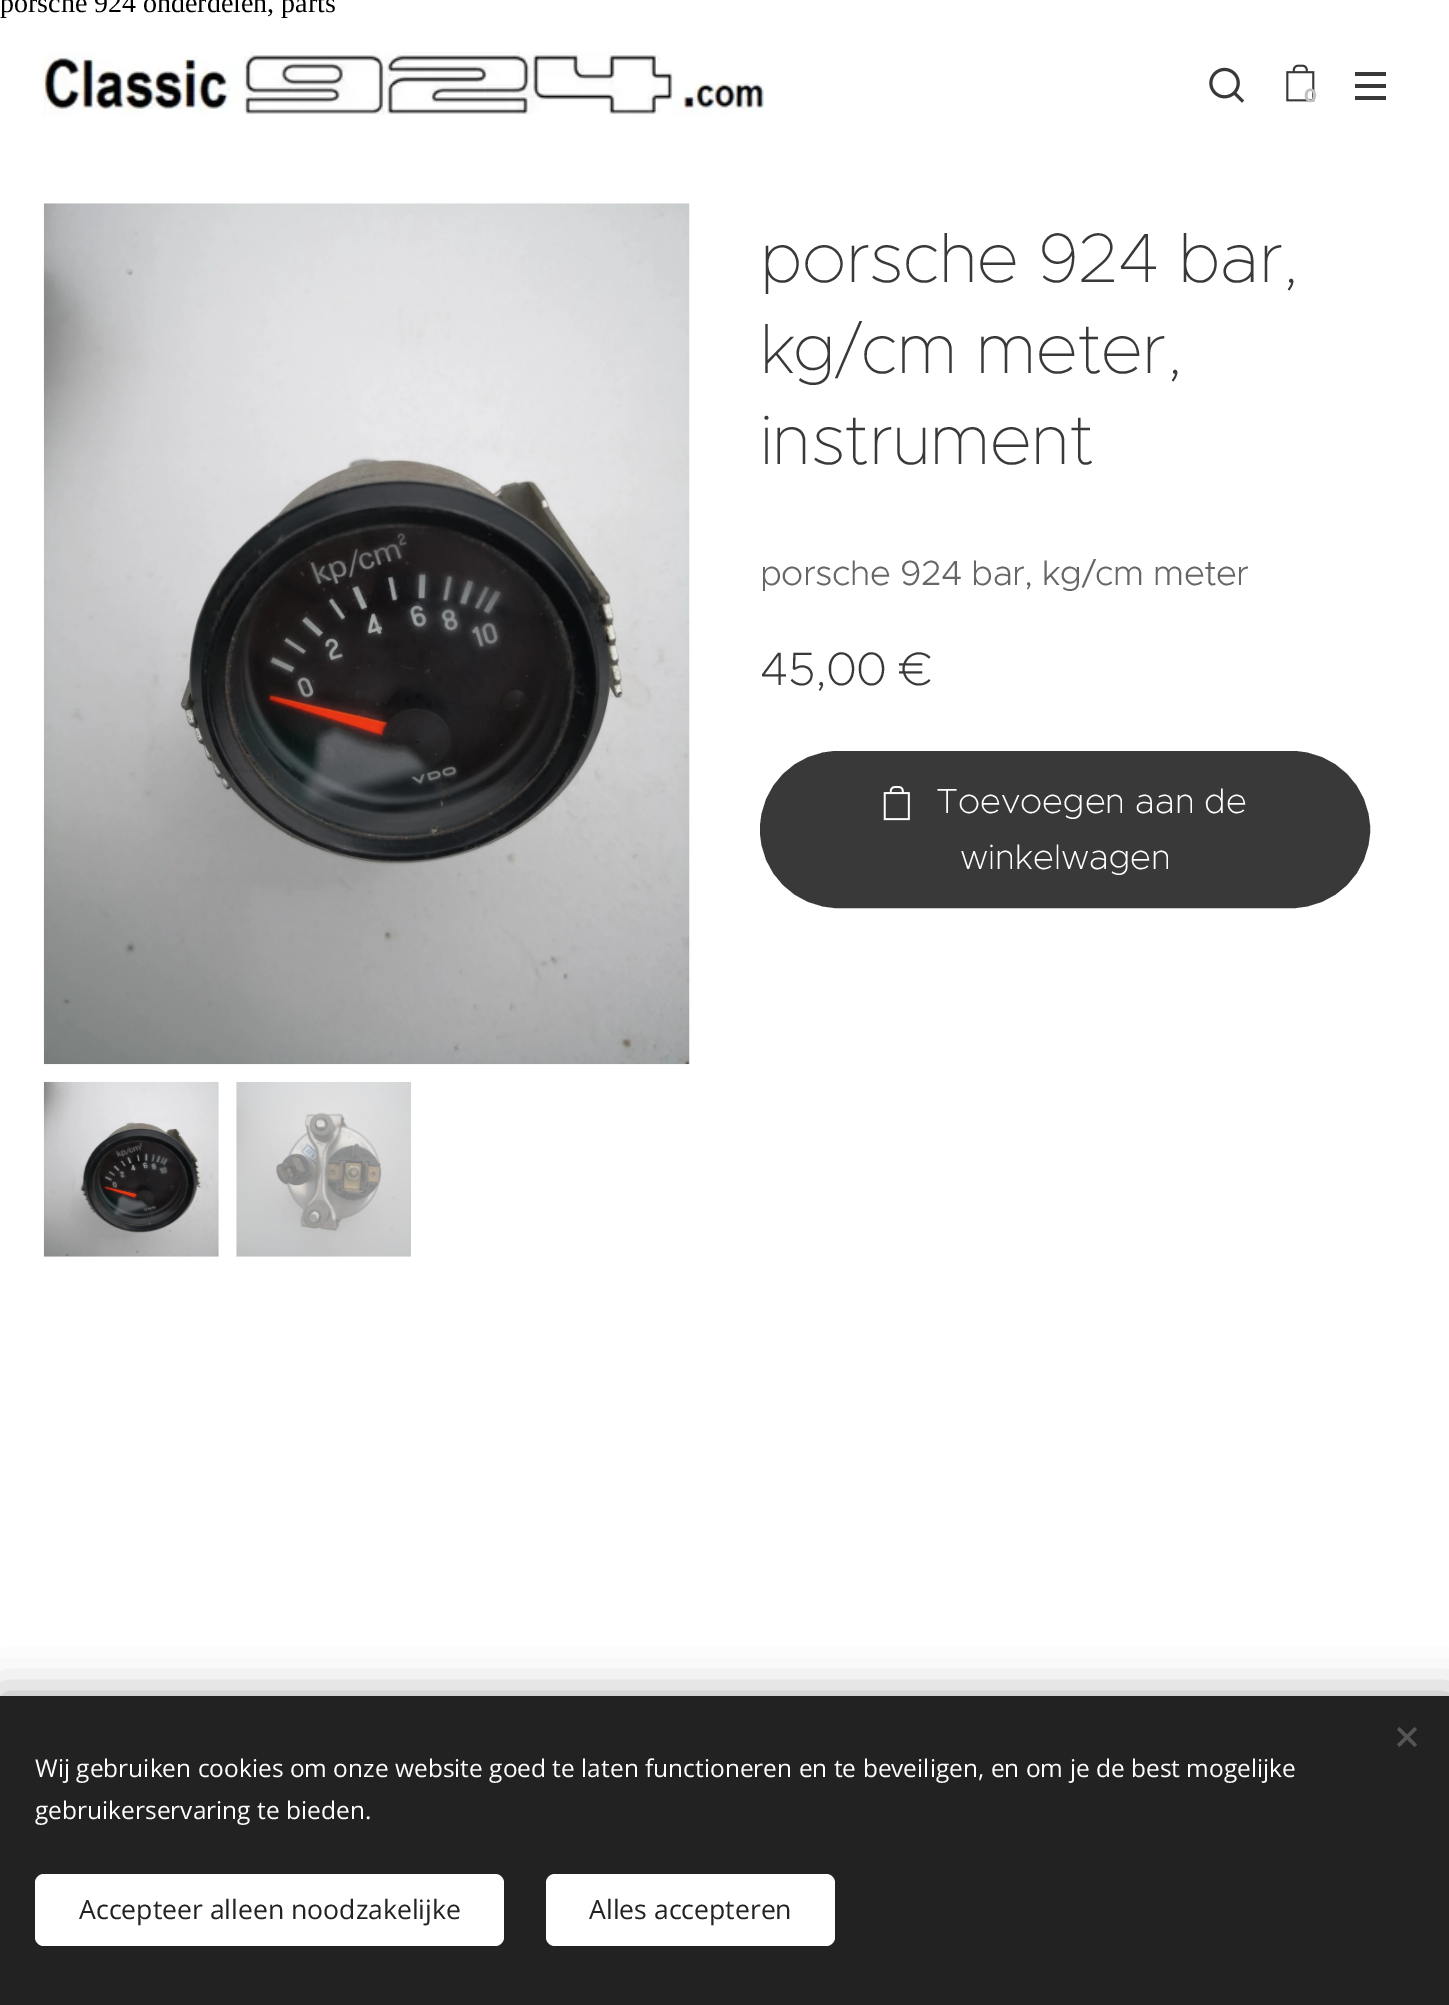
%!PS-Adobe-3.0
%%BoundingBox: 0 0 1449 2005
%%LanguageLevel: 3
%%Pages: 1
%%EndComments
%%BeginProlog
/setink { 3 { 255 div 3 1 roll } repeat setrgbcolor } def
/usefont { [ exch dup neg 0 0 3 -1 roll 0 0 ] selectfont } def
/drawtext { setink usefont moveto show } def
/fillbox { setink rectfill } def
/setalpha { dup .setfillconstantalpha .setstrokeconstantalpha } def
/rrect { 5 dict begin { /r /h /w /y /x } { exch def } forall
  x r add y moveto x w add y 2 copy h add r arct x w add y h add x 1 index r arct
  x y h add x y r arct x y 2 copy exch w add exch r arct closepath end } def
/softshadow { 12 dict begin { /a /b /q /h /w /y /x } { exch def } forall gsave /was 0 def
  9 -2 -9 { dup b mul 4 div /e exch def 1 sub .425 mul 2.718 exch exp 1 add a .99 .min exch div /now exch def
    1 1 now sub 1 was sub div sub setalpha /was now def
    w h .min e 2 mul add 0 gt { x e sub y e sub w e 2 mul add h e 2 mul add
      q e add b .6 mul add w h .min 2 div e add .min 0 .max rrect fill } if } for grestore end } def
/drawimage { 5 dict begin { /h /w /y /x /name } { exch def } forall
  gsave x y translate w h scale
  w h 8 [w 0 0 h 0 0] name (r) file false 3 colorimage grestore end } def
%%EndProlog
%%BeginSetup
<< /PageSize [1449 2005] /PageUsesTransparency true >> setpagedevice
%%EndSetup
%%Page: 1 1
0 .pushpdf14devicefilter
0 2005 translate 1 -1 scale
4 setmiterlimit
0 0 1449 2005 255 255 255 fillbox
(porsche 924 onderdelen, parts) 0 12 /LiberationSerif-Regular 28 0 0 0 drawtext
(assets/img1.rgb) 43 51 721 64 drawimage
(assets/img2.rgb) 1209 67 36 36 drawimage
(assets/img3.rgb) 1286 64 29 38 drawimage
(0) 1304 102 /Montserrat-Bold 19 194 194 194 drawtext
1355 84 31 4 57 57 57 fillbox
1355 72 31 4 57 57 57 fillbox
1355 96 31 4 57 57 57 fillbox
(assets/img4.rgb) 43 203 647 862 drawimage
(assets/img5.rgb) 43 1081 176 176 drawimage
(assets/img6.rgb) 236 1082 175 175 drawimage
/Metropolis-Thin 70 usefont
760 282 moveto -0.55 0 (porsche 924 bar,) ashow
760 373 moveto -0.55 0 (kg/cm meter,) ashow
760 464 moveto -0.55 0 (instrument) ashow
/Metropolis-Light 35 usefont
102 102 102 setink
760 585 moveto -0.55 0 (porsche 924 bar, kg/cm meter) ashow
/Metropolis-ExtraLight 47 usefont
57 57 57 setink
760 685 moveto -0.55 0 (45,00 €) ashow
761 752 608 155 77.5 rrect gsave fill grestore
2 setlinewidth
stroke
(assets/img7.rgb) 883 786 27 35 drawimage
(Toevoegen aan de) 936 813 /Metropolis-ExtraLight 35 255 255 255 drawtext
(winkelwagen) 960 869 /Metropolis-ExtraLight 35 255 255 255 drawtext
0 0 0 setink
0 1696 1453 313 0 22 0.33 softshadow
0 1696 1449 309 34 34 34 fillbox
85 85 85 setink
1397 1744.5 moveto 1414.5 1727 lineto 1417 1729.5 lineto 1399.5 1747 lineto closepath fill
1399.5 1727 moveto 1417 1744.5 lineto 1414.5 1747 lineto 1397 1729.5 lineto closepath fill
(Wij gebruiken cookies om onze website goed te laten functioneren en te beveiligen, en om je de best mogelijke) 35 1777 /OpenSans-Regular 24.5 255 255 255 drawtext
(gebruikerservaring te bieden.) 35 1819 /OpenSans-Regular 24.5 255 255 255 drawtext
35 1874 469 72 9 rrect fill
(Accepteer alleen noodzakelijke) 79 1919 /OpenSans-Regular 26.6 34 34 34 drawtext
255 255 255 setink
546 1874 289 72 9 rrect fill
(Alles accepteren) 589 1919 /OpenSans-Regular 26.6 34 34 34 drawtext
.poppdf14devicefilter showpage
%%EOF
